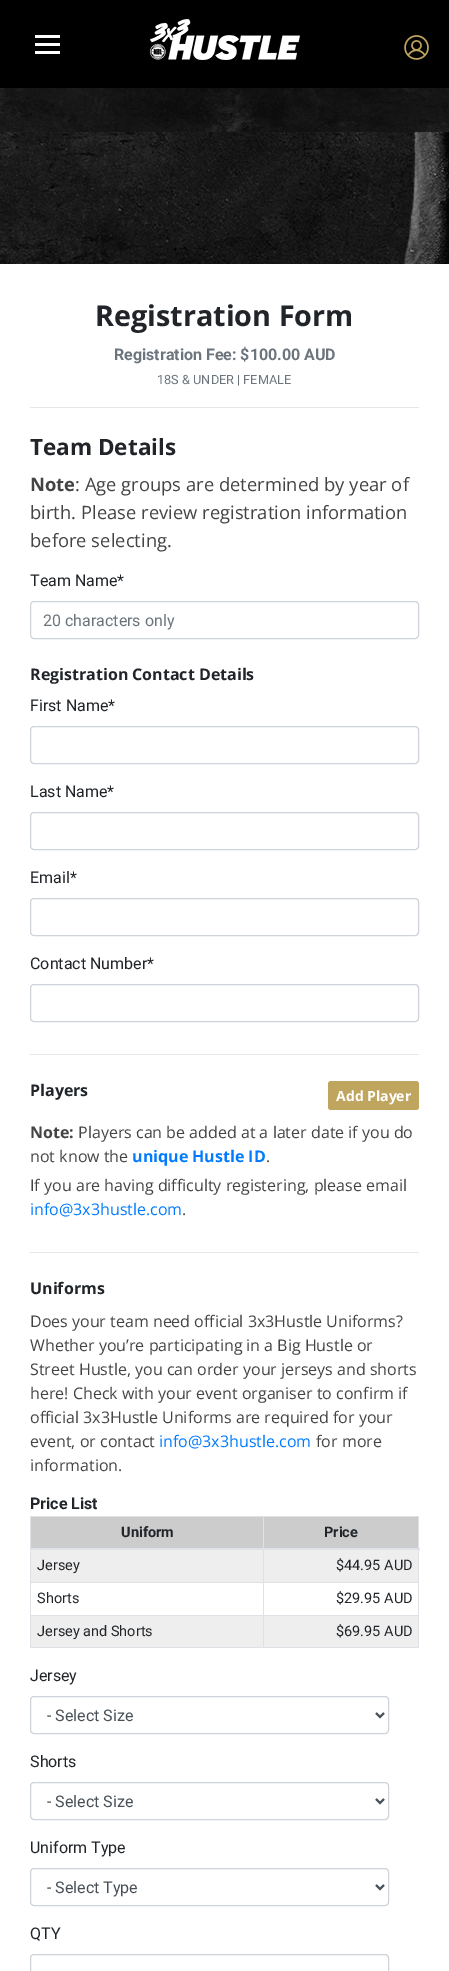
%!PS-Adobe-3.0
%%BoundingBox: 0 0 449 1971
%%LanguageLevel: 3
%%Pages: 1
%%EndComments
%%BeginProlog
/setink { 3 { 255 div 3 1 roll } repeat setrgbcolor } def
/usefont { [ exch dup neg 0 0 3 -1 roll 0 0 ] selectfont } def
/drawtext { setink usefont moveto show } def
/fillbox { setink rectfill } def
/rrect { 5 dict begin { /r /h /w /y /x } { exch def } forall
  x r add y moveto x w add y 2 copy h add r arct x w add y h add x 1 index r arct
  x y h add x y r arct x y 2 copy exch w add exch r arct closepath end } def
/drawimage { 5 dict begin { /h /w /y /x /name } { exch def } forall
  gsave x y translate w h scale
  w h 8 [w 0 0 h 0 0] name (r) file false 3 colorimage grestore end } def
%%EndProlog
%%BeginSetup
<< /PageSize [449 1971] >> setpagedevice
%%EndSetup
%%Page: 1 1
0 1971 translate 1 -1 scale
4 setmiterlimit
0 0 449 1971 255 255 255 fillbox
(assets/img1.rgb) 0 88 449 44 drawimage
0 0 449 88 0 0 0 fillbox
35 35 25 3 255 255 255 fillbox
35 43 25 3 255 255 255 fillbox
35 51 25 3 255 255 255 fillbox
(assets/img2.rgb) 150 19 150 41 drawimage
(assets/img3.rgb) 404 35 25 25 drawimage
(assets/img4.rgb) 0 132 449 132 drawimage
(Registration Form) 95 326 /OpenSans-Bold 28.75 33 37 41 drawtext
(Registration Fee: $100.00 AUD) 114 360 /Roboto-Bold 16 108 117 125 drawtext
(18S & UNDER | FEMALE) 157 384 /Roboto-Regular 12.75 108 117 125 drawtext
30 407 389 1 230 230 230 fillbox
(Team Details) 30 455 /OpenSans-Bold 22.5 33 37 41 drawtext
(Note) 30 491 /OpenSans-Bold 18.4 68 68 68 drawtext
(: Age groups are determined by year of) 75 491 /OpenSans-Regular 18.4 68 68 68 drawtext
(birth. Please review registration information) 30 519 /OpenSans-Regular 18.4 68 68 68 drawtext
(before selecting.) 30 547 /OpenSans-Regular 18.4 68 68 68 drawtext
(Team Name*) 30 586 /Roboto-Regular 16 33 37 41 drawtext
206 212 218 setink
30.5 601.5 388 37 3.5 rrect stroke
(20 characters only) 43 626 /Roboto-Regular 16 108 117 125 drawtext
(Registration Contact Details) 30 680 /OpenSans-Bold 16 33 37 41 drawtext
(First Name*) 30 711 /Roboto-Regular 16 33 37 41 drawtext
206 212 218 setink
30.5 726.5 388 37 3.5 rrect stroke
(Last Name*) 30 797 /Roboto-Regular 16 33 37 41 drawtext
206 212 218 setink
30.5 812.5 388 37 3.5 rrect stroke
(Email*) 30 883 /Roboto-Regular 16 33 37 41 drawtext
206 212 218 setink
30.5 898.5 388 37 3.5 rrect stroke
(Contact Number*) 30 969 /Roboto-Regular 16 33 37 41 drawtext
206 212 218 setink
30.5 984.5 388 37 3.5 rrect stroke
30 1054 389 1 230 230 230 fillbox
(Players) 30 1096 /OpenSans-Bold 16 33 37 41 drawtext
192 165 94 setink
328 1081 91 29 3 rrect fill
(Add Player) 336 1101 /OpenSans-Bold 14 255 255 255 drawtext
(Note:) 30 1138 /OpenSans-Bold 16 68 68 68 drawtext
(Players can be added at a later date if you do) 78 1138 /OpenSans-Regular 16 68 68 68 drawtext
(not know the) 30 1162 /OpenSans-Regular 16 68 68 68 drawtext
(unique Hustle ID) 132 1162 /OpenSans-Bold 16 0 123 255 drawtext
(.) 266 1162 /OpenSans-Regular 16 68 68 68 drawtext
(If you are having difficulty registering, please email) 30 1191 /OpenSans-Regular 16 68 68 68 drawtext
(info@3x3hustle.com) 30 1215 /OpenSans-Regular 16 0 123 255 drawtext
(.) 182 1215 /OpenSans-Regular 16 68 68 68 drawtext
30 1252 389 1 230 230 230 fillbox
(Uniforms) 30 1294 /OpenSans-Bold 16 33 37 41 drawtext
(Does your team need official 3x3Hustle Uniforms?) 30 1327 /OpenSans-Regular 16 68 68 68 drawtext
(Whether you’re participating in a Big Hustle or) 30 1351 /OpenSans-Regular 16 68 68 68 drawtext
(Street Hustle, you can order your jerseys and shorts) 30 1375 /OpenSans-Regular 16 68 68 68 drawtext
(here! Check with your event organiser to confirm if) 30 1399 /OpenSans-Regular 16 68 68 68 drawtext
(official 3x3Hustle Uniforms are required for your) 30 1423 /OpenSans-Regular 16 68 68 68 drawtext
(event, or contact) 30 1447 /OpenSans-Regular 16 68 68 68 drawtext
(info@3x3hustle.com) 159 1447 /OpenSans-Regular 16 0 123 255 drawtext
(for more) 316 1447 /OpenSans-Regular 16 68 68 68 drawtext
(information.) 30 1471 /OpenSans-Regular 16 68 68 68 drawtext
(Price List) 30 1509 /Roboto-Bold 16 33 37 41 drawtext
30 1516 389 1 222 226 230 fillbox
418 1516 1 132 222 226 230 fillbox
30 1647 389 1 222 226 230 fillbox
30 1516 1 132 222 226 230 fillbox
31 1517 387 31 204 204 204 fillbox
(Uniform) 121 1537 /Roboto-Bold 14.5 33 37 41 drawtext
31 1550 387 32 238 238 238 fillbox
263 1582 156 1 222 226 230 fillbox
263 1615 156 1 222 226 230 fillbox
31 1616 387 31 238 238 238 fillbox
263 1615 1 33 222 226 230 fillbox
30 1615 234 1 222 226 230 fillbox
263 1582 1 34 222 226 230 fillbox
30 1582 234 1 222 226 230 fillbox
263 1516 1 67 222 226 230 fillbox
30 1548 390 2 222 226 230 fillbox
(Price) 324 1537 /Roboto-Bold 14.5 33 37 41 drawtext
(Jersey) 37 1570 /Roboto-Regular 14.5 33 37 41 drawtext
($44.95 AUD) 336 1570 /Roboto-Regular 14.5 33 37 41 drawtext
(Shorts) 37 1603 /Roboto-Regular 14.5 33 37 41 drawtext
($29.95 AUD) 336 1603 /Roboto-Regular 14.5 33 37 41 drawtext
(Jersey and Shorts) 37 1636 /Roboto-Regular 14.5 33 37 41 drawtext
($69.95 AUD) 336 1636 /Roboto-Regular 14.5 33 37 41 drawtext
(Jersey) 30 1681 /Roboto-Regular 16 33 37 41 drawtext
206 212 218 setink
30.5 1696.5 358 37 3.5 rrect stroke
73 80 87 setink
2 setlinewidth
376 1713 moveto 380 1717 lineto 384 1713 lineto stroke
(- Select Size) 47 1721 /Roboto-Regular 16 73 80 87 drawtext
(Shorts) 30 1767 /Roboto-Regular 16 33 37 41 drawtext
206 212 218 setink
1 setlinewidth
30.5 1782.5 358 37 3.5 rrect stroke
73 80 87 setink
2 setlinewidth
376 1799 moveto 380 1803 lineto 384 1799 lineto stroke
(- Select Size) 47 1807 /Roboto-Regular 16 73 80 87 drawtext
(Uniform Type) 30 1853 /Roboto-Regular 16 33 37 41 drawtext
206 212 218 setink
1 setlinewidth
30.5 1868.5 358 37 3.5 rrect stroke
73 80 87 setink
2 setlinewidth
376 1885 moveto 380 1889 lineto 384 1885 lineto stroke
(- Select Type) 47 1893 /Roboto-Regular 16 73 80 87 drawtext
(QTY) 30 1939 /Roboto-Regular 16 33 37 41 drawtext
206 212 218 setink
1 setlinewidth
30.5 1954.5 358 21 3.5 rrect stroke
showpage
%%EOF
